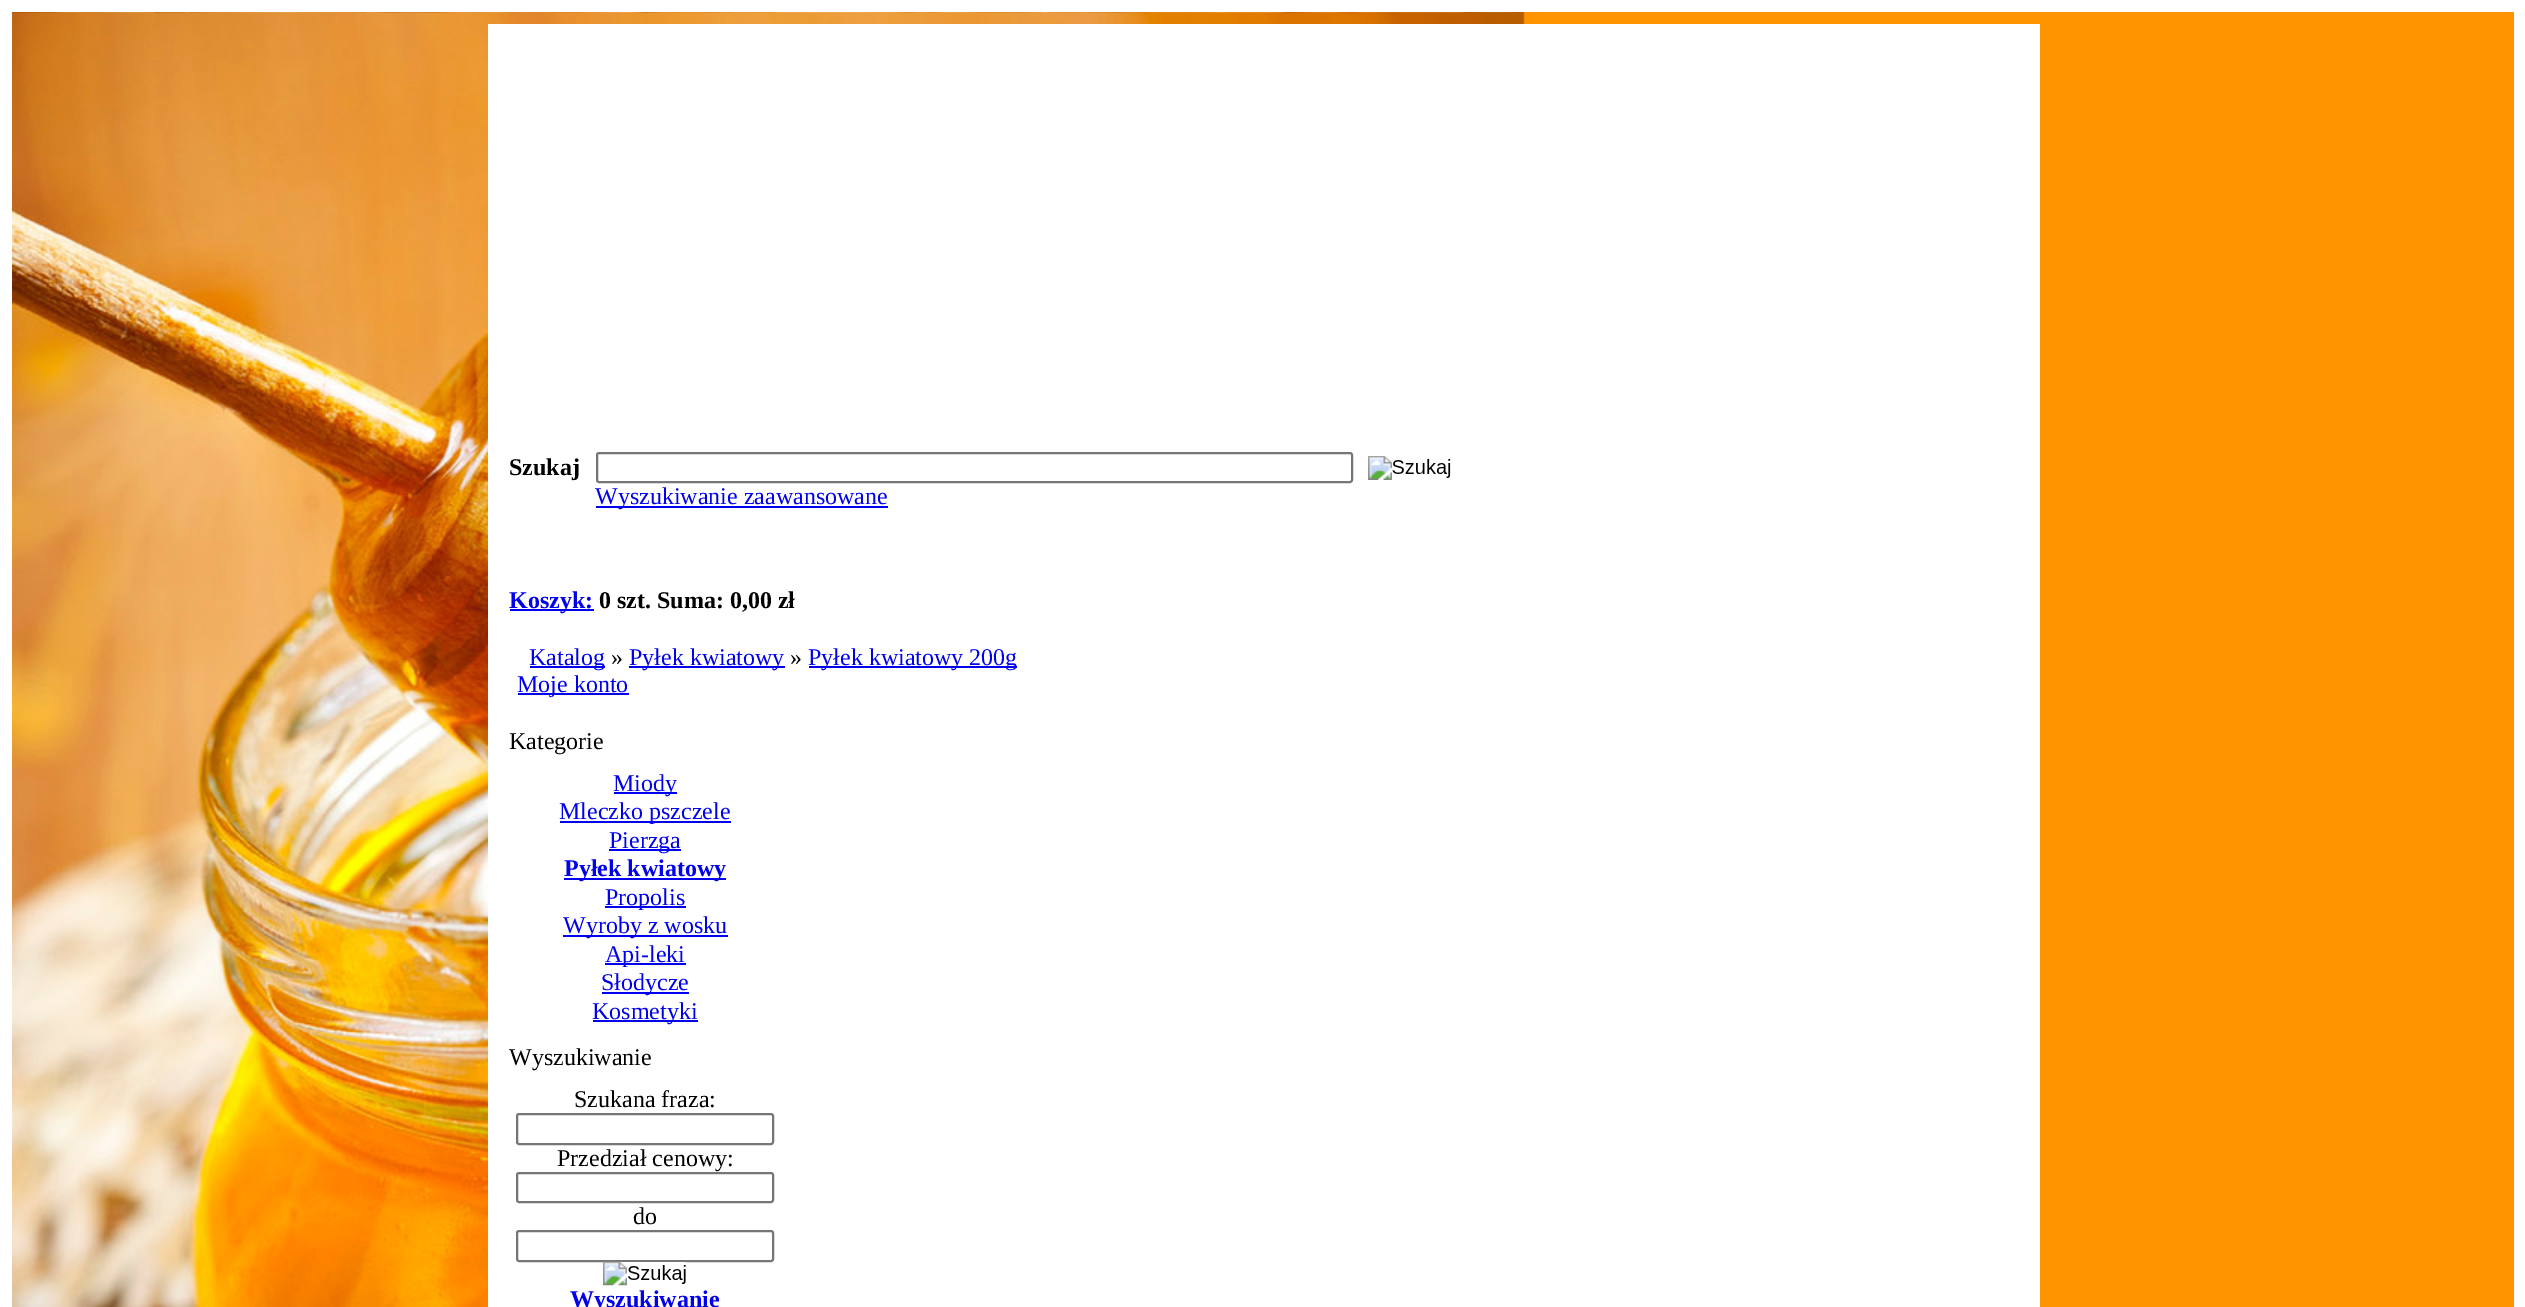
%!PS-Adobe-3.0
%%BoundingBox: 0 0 2525 1307
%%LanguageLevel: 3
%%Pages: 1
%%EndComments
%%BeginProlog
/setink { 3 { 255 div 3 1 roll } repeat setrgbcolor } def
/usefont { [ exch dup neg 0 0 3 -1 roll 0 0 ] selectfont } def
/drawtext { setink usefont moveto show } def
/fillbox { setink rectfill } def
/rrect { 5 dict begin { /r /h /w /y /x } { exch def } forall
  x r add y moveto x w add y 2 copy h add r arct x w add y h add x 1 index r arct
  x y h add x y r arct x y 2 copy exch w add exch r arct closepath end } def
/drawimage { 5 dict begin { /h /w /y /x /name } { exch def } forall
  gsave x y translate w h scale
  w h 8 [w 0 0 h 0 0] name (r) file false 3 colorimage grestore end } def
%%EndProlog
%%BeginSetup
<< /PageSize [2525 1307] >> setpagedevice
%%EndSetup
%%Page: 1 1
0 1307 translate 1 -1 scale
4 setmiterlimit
0 0 2525 1307 255 255 255 fillbox
(assets/img1.rgb) 12 12 2502 1295 drawimage
488 24 1552 1283 255 255 255 fillbox
(Szukaj) 509 475 /LiberationSerif-Bold 24 0 0 0 drawtext
118 118 118 setink
2 setlinewidth
597 453 755 29 2 rrect stroke
(assets/img2.rgb) 1368 456 83 24 drawimage
596 506 292 2 0 0 238 fillbox
(Wyszukiwanie zaawansowane) 595 504 /LiberationSerif-Regular 24 0 0 238 drawtext
510 609 84 2 0 0 238 fillbox
(Koszyk:) 509 608 /LiberationSerif-Bold 24 0 0 238 drawtext
(0 szt. Suma: 0,00 zł) 599 608 /LiberationSerif-Bold 24 0 0 0 drawtext
530 666 75 2 0 0 238 fillbox
(Katalog) 529 665 /LiberationSerif-Regular 24 0 0 238 drawtext
(») 611 665 /LiberationSerif-Regular 24 0 0 0 drawtext
629 666 156 2 0 0 238 fillbox
(Pyłek kwiatowy) 629 665 /LiberationSerif-Regular 24 0 0 238 drawtext
(») 790 665 /LiberationSerif-Regular 24 0 0 0 drawtext
809 666 208 2 0 0 238 fillbox
(Pyłek kwiatowy 200g) 808 665 /LiberationSerif-Regular 24 0 0 238 drawtext
518 693 111 2 0 0 238 fillbox
(Moje konto) 517 692 /LiberationSerif-Regular 24 0 0 238 drawtext
(Kategorie) 509 749 /LiberationSerif-Regular 24 0 0 0 drawtext
614 792 63 2 0 0 238 fillbox
(Miody) 613 791 /LiberationSerif-Regular 24 0 0 238 drawtext
560 821 171 2 0 0 238 fillbox
(Mleczko pszczele) 559 819 /LiberationSerif-Regular 24 0 0 238 drawtext
609 849 72 2 0 0 238 fillbox
(Pierzga) 609 848 /LiberationSerif-Regular 24 0 0 238 drawtext
564 878 162 2 0 0 238 fillbox
(Pyłek kwiatowy) 564 876 /LiberationSerif-Bold 24 0 0 238 drawtext
605 906 81 2 0 0 238 fillbox
(Propolis) 605 905 /LiberationSerif-Regular 24 0 0 238 drawtext
563 935 165 2 0 0 238 fillbox
(Wyroby z wosku) 563 933 /LiberationSerif-Regular 24 0 0 238 drawtext
605 963 81 2 0 0 238 fillbox
(Api-leki) 605 962 /LiberationSerif-Regular 24 0 0 238 drawtext
602 992 87 2 0 0 238 fillbox
(Słodycze) 601 990 /LiberationSerif-Regular 24 0 0 238 drawtext
593 1020 105 2 0 0 238 fillbox
(Kosmetyki) 592 1019 /LiberationSerif-Regular 24 0 0 238 drawtext
(Wyszukiwanie) 509 1065 /LiberationSerif-Regular 24 0 0 0 drawtext
(Szukana fraza:) 574 1107 /LiberationSerif-Regular 24 0 0 0 drawtext
118 118 118 setink
517 1114 256 30 2 rrect stroke
(Przedział cenowy:) 557 1166 /LiberationSerif-Regular 24 0 0 0 drawtext
118 118 118 setink
517 1173 256 29 2 rrect stroke
(do) 633 1224 /LiberationSerif-Regular 24 0 0 0 drawtext
118 118 118 setink
517 1231 256 30 2 rrect stroke
(assets/img3.rgb) 603 1261 83 25 drawimage
(Wyszukiwanie) 570 1307 /LiberationSerif-Bold 24 0 0 238 drawtext
showpage
%%EOF
